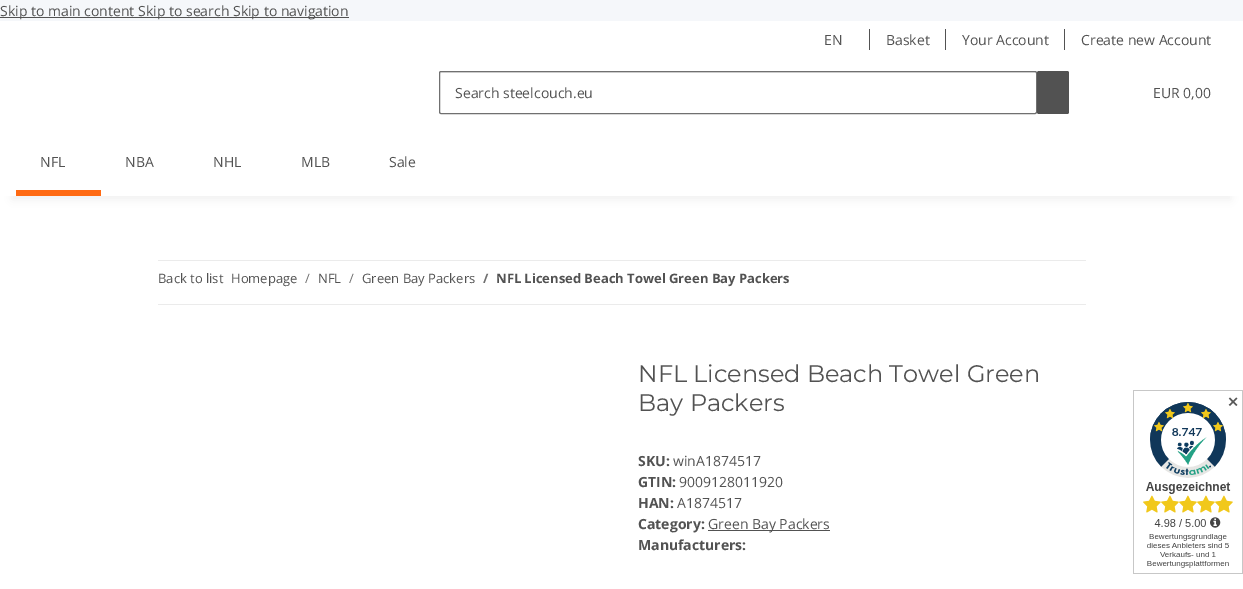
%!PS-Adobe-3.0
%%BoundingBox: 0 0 1243 589
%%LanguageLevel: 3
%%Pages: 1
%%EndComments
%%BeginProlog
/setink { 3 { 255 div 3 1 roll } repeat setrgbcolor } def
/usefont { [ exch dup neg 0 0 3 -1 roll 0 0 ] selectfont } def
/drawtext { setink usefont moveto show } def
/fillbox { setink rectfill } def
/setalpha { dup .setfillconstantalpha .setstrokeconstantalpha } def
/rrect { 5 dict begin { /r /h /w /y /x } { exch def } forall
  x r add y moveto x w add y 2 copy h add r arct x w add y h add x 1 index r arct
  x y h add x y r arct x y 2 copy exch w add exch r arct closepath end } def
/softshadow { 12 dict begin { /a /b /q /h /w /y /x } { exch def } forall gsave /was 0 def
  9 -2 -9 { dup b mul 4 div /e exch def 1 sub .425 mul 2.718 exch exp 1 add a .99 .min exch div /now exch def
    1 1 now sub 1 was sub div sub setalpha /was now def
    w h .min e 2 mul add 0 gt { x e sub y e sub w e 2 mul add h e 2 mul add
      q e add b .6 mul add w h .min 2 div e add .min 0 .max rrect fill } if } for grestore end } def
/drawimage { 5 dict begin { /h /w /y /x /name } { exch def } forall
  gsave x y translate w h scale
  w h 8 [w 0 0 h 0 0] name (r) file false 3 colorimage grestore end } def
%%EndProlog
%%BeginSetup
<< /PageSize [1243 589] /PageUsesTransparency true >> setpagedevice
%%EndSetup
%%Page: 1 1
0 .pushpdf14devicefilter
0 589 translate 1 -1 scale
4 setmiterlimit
0 0 1243 589 245 247 250 fillbox
0 17 349 1 82 82 82 fillbox
(Skip to main content Skip to search Skip to navigation) 0 16 /OpenSans-Regular 14 82 82 82 drawtext
0 196 1243 393 255 255 255 fillbox
0 0 0 setink
12 49 1219 151 0 4.5 0.06 softshadow
0 21 1243 175 255 255 255 fillbox
(EN) 824 45 /OpenSans-Regular 14 82 82 82 drawtext
869 29 1 21 82 82 82 fillbox
(Basket) 886 45 /OpenSans-Regular 14 82 82 82 drawtext
945 29 1 21 82 82 82 fillbox
(Your Account) 962 45 /OpenSans-Regular 14 82 82 82 drawtext
1064 29 1 21 82 82 82 fillbox
(Create new Account) 1081 45 /OpenSans-Regular 14 82 82 82 drawtext
236 236 236 setink
441 73 moveto 1035 73 lineto 1036 74 lineto 1036 73 1036 72 1035 72 curveto 441 72 lineto 440 72 440 73 440 74 curveto closepath fill
112 112 112 setink
439.5 71.5 597 42 1.5 rrect stroke
(Search steelcouch.eu) 455 98 /OpenSans-Regular 14 82 82 82 drawtext
1037 71 32 43 2 rrect fill
(EUR 0,00) 1153 98 /OpenSans-Regular 14 82 82 82 drawtext
(NFL) 40 167 /OpenSans-Regular 14 82 82 82 drawtext
16 190 85 6 255 106 19 fillbox
(NBA) 125 167 /OpenSans-Regular 14 82 82 82 drawtext
(NHL) 213 167 /OpenSans-Regular 14 82 82 82 drawtext
(MLB) 301 167 /OpenSans-Regular 14 82 82 82 drawtext
(Sale) 389 167 /OpenSans-Regular 14 82 82 82 drawtext
158 260 928 1 235 235 235 fillbox
158 304 928 1 235 235 235 fillbox
(Back to list) 158 283 /OpenSans-Regular 13 82 82 82 drawtext
(Homepage) 231 283 /OpenSans-Regular 13 82 82 82 drawtext
(/) 305 283 /OpenSans-Regular 13 112 112 112 drawtext
(NFL) 318 283 /OpenSans-Regular 13 82 82 82 drawtext
(/) 349 283 /OpenSans-Regular 13 112 112 112 drawtext
(Green Bay Packers) 362 283 /OpenSans-Regular 13 82 82 82 drawtext
(/) 483 283 /OpenSans-Bold 13 112 112 112 drawtext
(NFL Licensed Beach Towel Green Bay Packers) 496 283 /OpenSans-Bold 13 82 82 82 drawtext
(NFL Licensed Beach Towel Green) 638 382 /Montserrat-Regular 24 82 82 82 drawtext
(Bay Packers) 638 411 /Montserrat-Regular 24 82 82 82 drawtext
(SKU:) 638 466 /OpenSans-Bold 14 82 82 82 drawtext
(winA1874517) 673 466 /OpenSans-Regular 14 82 82 82 drawtext
(GTIN:) 638 487 /OpenSans-Bold 14 82 82 82 drawtext
(9009128011920) 679 487 /OpenSans-Regular 14 82 82 82 drawtext
(HAN:) 638 508 /OpenSans-Bold 14 82 82 82 drawtext
(A1874517) 677 508 /OpenSans-Regular 14 82 82 82 drawtext
(Category:) 638 529 /OpenSans-Bold 14 82 82 82 drawtext
708 530 122 1 82 82 82 fillbox
(Green Bay Packers) 708 529 /OpenSans-Regular 14 82 82 82 drawtext
(Manufacturers:) 638 550 /OpenSans-Bold 14 82 82 82 drawtext
(assets/img1.rgb) 1133 390 110 184 drawimage
(✕) 1227 407 /DejaVuSans-Bold 14 89 89 89 drawtext
.poppdf14devicefilter showpage
%%EOF
